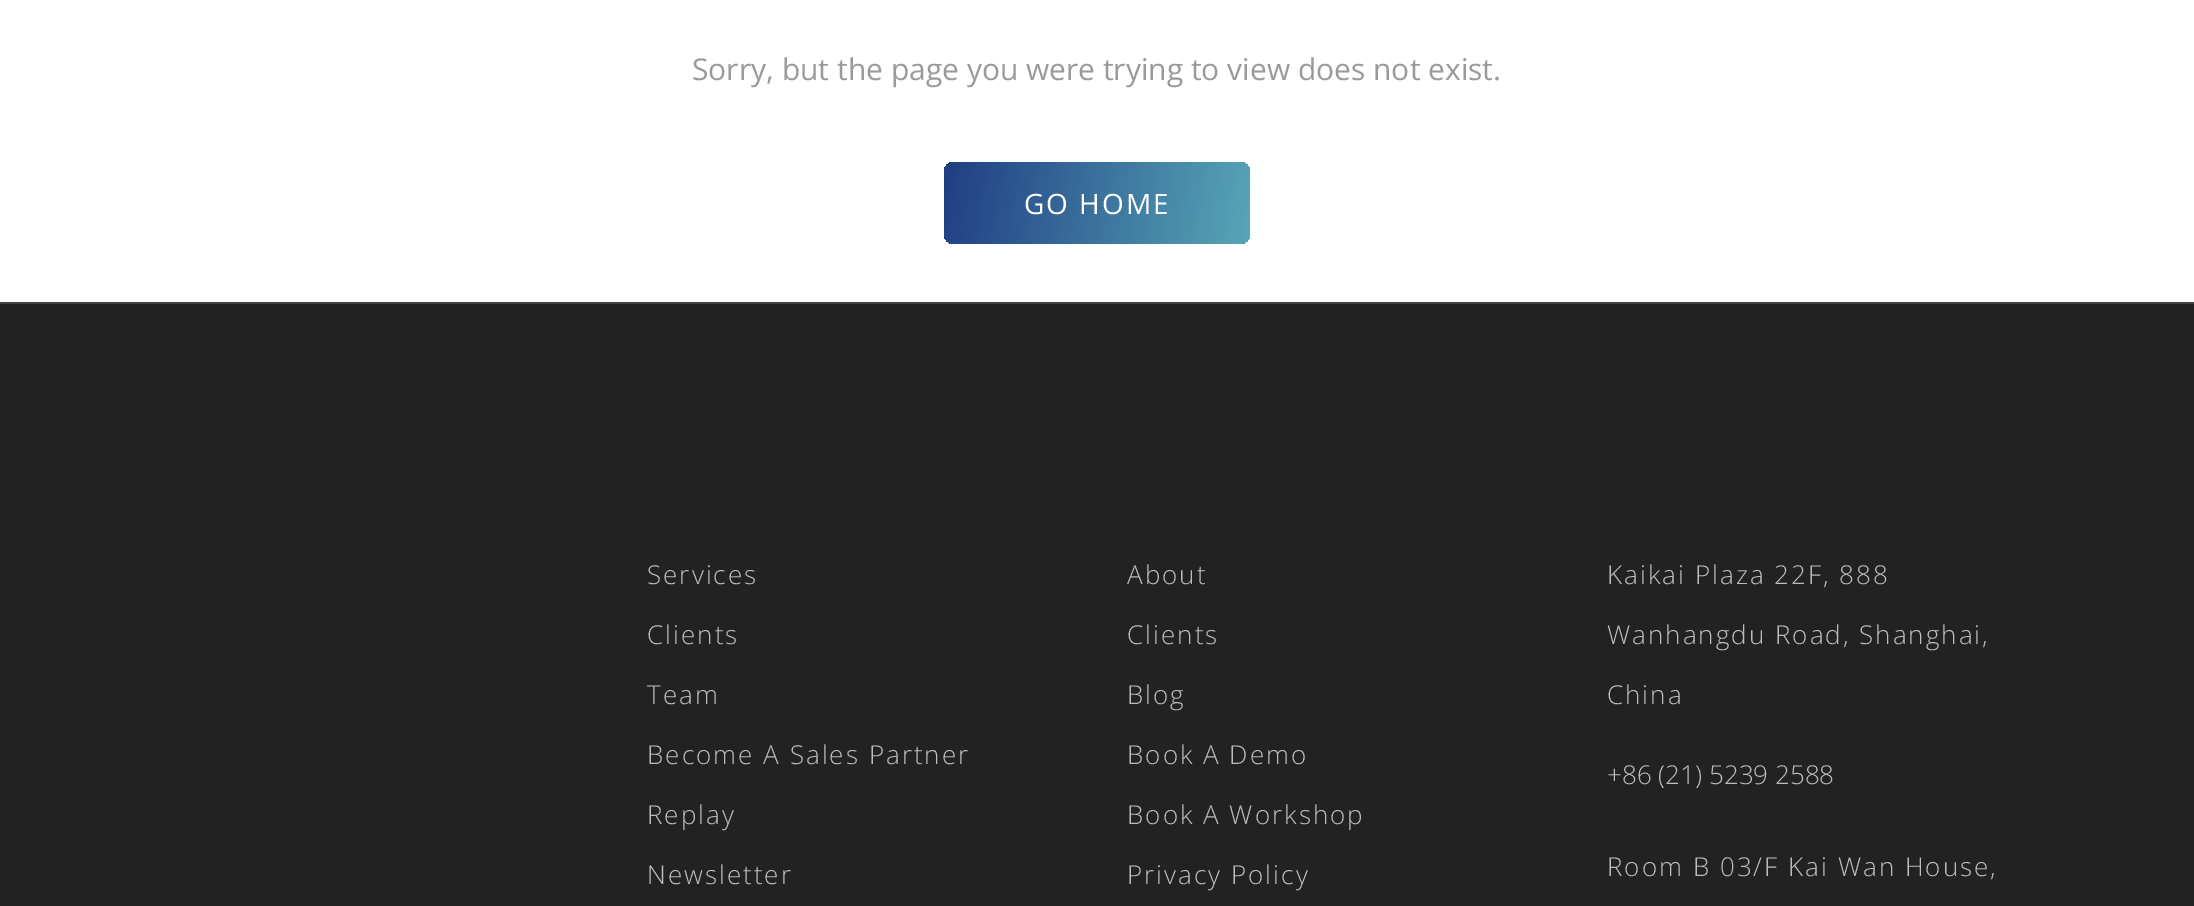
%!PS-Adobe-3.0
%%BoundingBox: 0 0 2194 906
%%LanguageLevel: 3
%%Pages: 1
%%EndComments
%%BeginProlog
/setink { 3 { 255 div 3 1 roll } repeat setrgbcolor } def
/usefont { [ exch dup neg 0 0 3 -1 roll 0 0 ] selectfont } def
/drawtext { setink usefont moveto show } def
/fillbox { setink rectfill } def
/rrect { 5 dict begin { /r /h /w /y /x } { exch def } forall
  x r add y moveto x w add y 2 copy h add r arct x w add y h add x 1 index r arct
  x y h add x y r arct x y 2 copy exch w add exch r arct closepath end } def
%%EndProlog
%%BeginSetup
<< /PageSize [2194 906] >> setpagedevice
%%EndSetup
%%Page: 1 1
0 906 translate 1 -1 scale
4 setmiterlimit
0 0 2194 906 255 255 255 fillbox
(Sorry, but the page you were trying to view does not exist.) 692 80 /OpenSans-Regular 30 154 154 154 drawtext
gsave 944 162 306 82 10 rrect clip newpath
<< /ShadingType 2 /ColorSpace /DeviceRGB /Coords [942 176 1252 230] /Extend [true true] /Function << /FunctionType 2 /Domain [0 1] /C0 [0.125 0.243 0.514] /C1 [0.341 0.651 0.718] /N 1 >> >> shfill grestore
/OpenSans-Regular 28 usefont
255 255 255 setink
1024 214 moveto 2 0 (GO HOME) ashow
0 304 2194 602 34 34 34 fillbox
0 302 2194 2 64 64 64 fillbox
/OpenSans-Light 26 usefont
189 189 189 setink
647 584 moveto 2 0 (Services) ashow
647 644 moveto 2 0 (Clients) ashow
647 704 moveto 2 0 (Team) ashow
647 764 moveto 2 0 (Become A Sales Partner) ashow
647 824 moveto 2 0 (Replay) ashow
647 884 moveto 2 0 (Newsletter) ashow
1127 584 moveto 2 0 (About) ashow
1127 644 moveto 2 0 (Clients) ashow
1127 704 moveto 2 0 (Blog) ashow
1127 764 moveto 2 0 (Book A Demo) ashow
1127 824 moveto 2 0 (Book A Workshop) ashow
1127 884 moveto 2 0 (Privacy Policy) ashow
1607 584 moveto 2 0 (Kaikai Plaza 22F, 888) ashow
1607 644 moveto 2 0 (Wanhangdu Road, Shanghai,) ashow
1607 704 moveto 2 0 (China) ashow
(+86 \(21\) 5239 2588) 1607 784 /OpenSans-Light 26 189 189 189 drawtext
1607 876 moveto 2 0 (Room B 03/F Kai Wan House,) ashow
showpage
%%EOF
